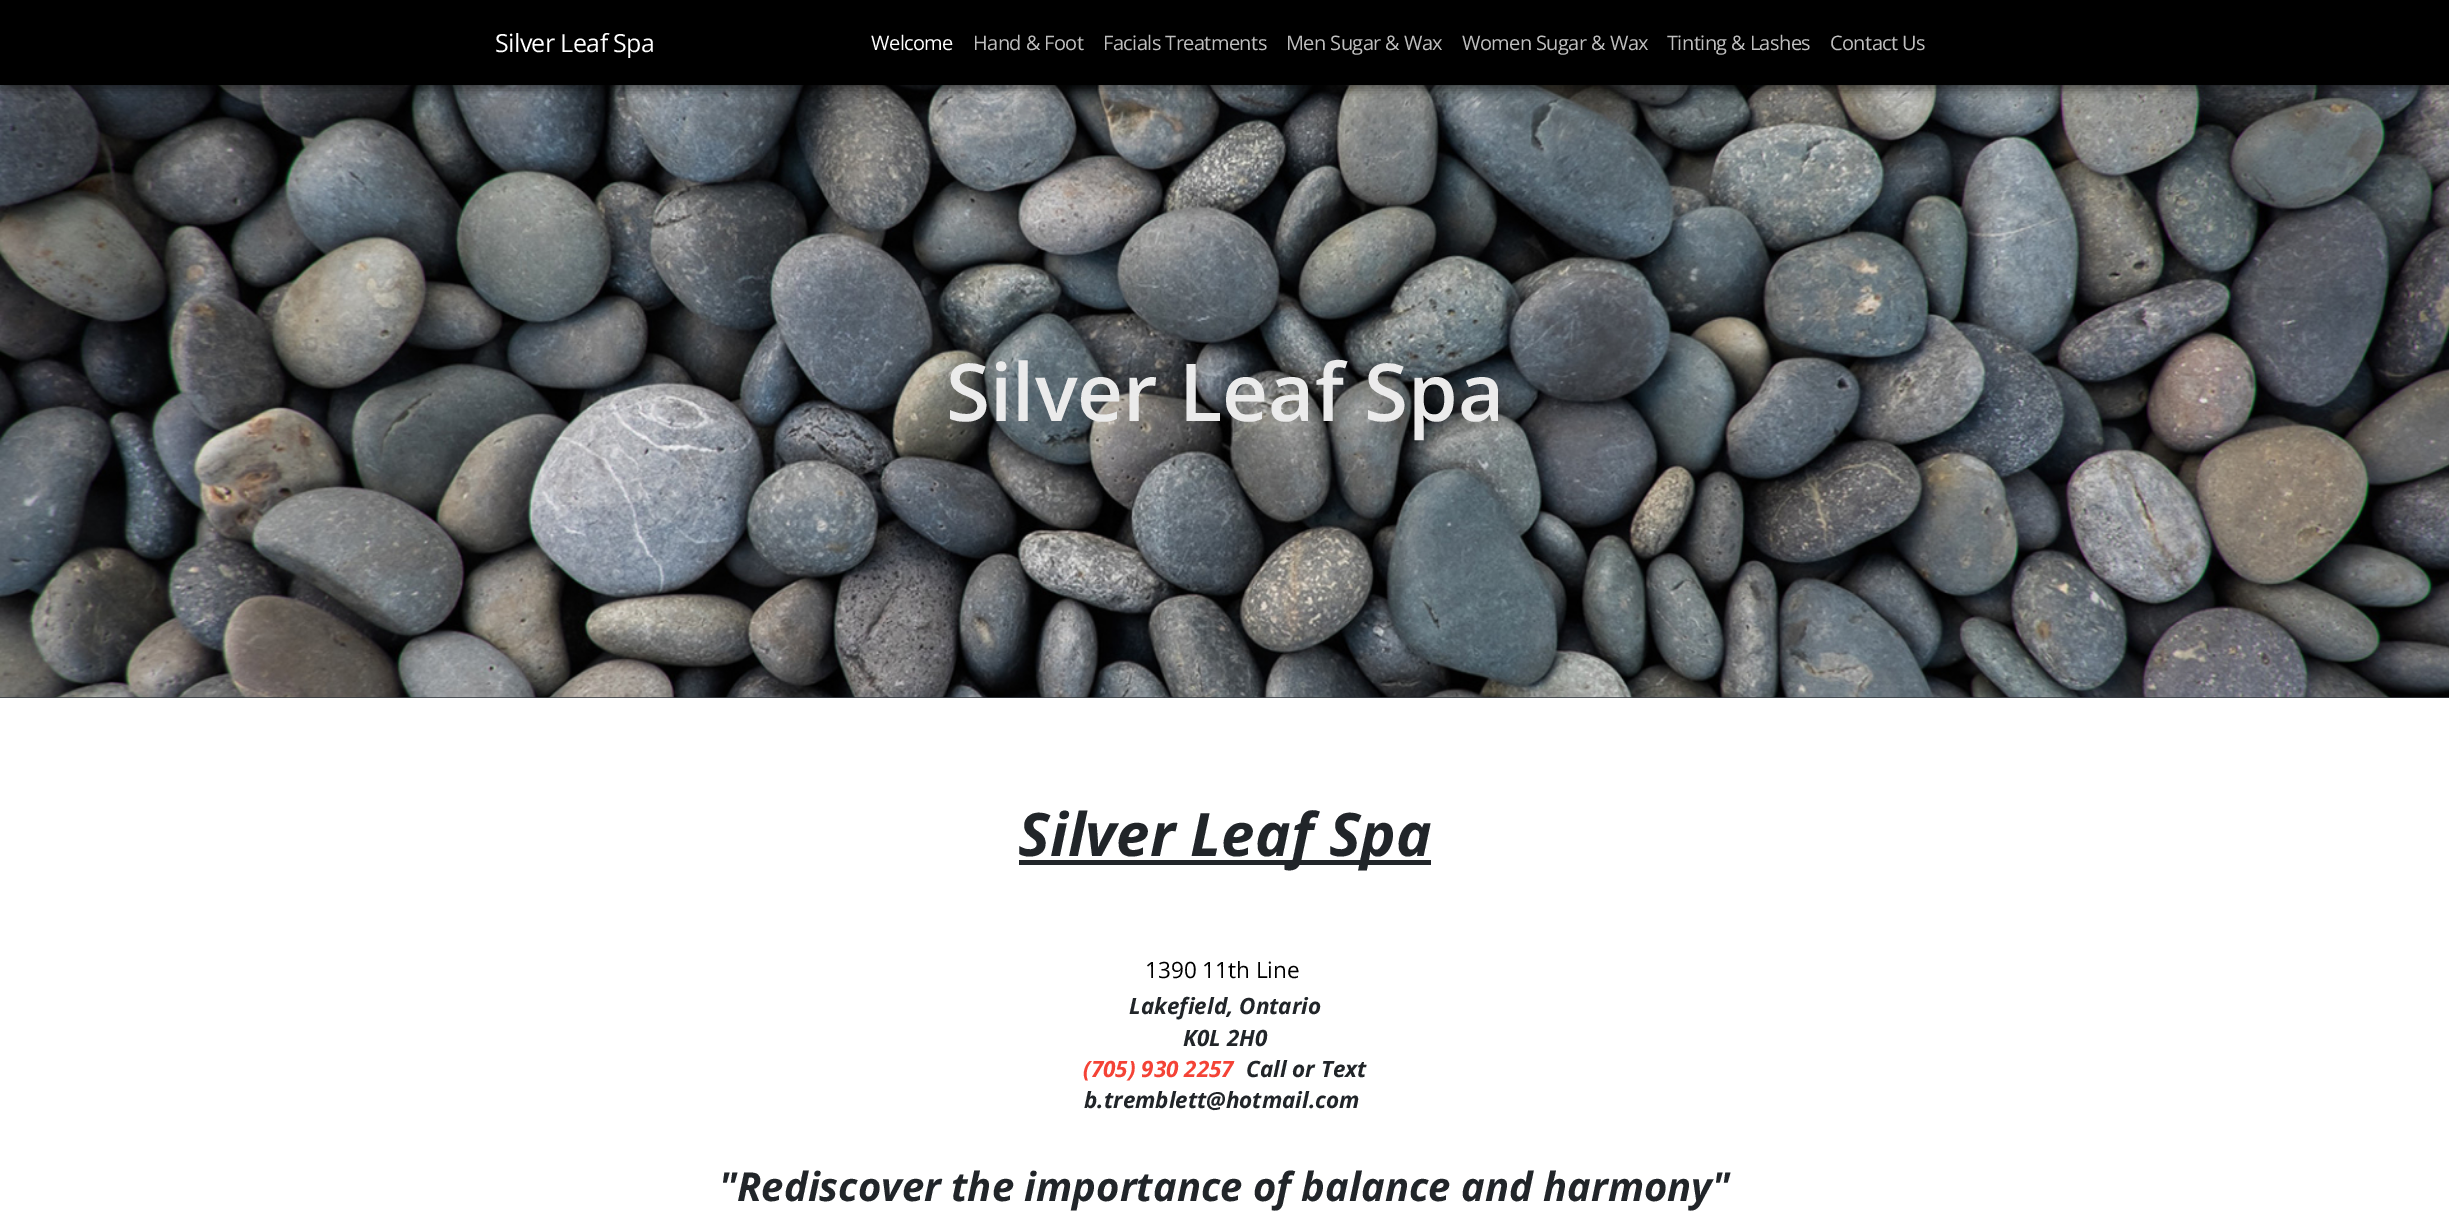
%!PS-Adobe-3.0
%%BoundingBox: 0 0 2449 1222
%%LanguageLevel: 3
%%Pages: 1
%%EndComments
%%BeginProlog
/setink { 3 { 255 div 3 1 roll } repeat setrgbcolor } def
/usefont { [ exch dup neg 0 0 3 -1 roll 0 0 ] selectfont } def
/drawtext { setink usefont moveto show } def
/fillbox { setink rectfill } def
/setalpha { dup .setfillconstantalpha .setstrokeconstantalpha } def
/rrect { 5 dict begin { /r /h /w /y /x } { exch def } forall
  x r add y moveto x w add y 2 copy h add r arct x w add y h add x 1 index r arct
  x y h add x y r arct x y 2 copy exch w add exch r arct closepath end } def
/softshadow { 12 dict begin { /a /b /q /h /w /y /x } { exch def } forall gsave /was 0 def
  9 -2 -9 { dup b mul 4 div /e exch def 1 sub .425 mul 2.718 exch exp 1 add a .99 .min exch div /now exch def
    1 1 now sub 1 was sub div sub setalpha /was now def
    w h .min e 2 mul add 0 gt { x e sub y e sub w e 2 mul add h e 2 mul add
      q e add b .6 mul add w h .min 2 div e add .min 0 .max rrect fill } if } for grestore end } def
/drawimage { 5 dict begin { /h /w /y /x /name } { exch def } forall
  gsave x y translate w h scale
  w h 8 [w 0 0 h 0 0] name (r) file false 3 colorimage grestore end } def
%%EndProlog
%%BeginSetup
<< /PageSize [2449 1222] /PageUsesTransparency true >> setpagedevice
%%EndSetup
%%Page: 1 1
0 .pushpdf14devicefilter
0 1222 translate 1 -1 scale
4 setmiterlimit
0 0 2449 1222 255 255 255 fillbox
0 697 2449 1 52 58 64 fillbox
(assets/img1.rgb) 0 85 2449 613 drawimage
0 0 0 setink
0 5 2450 85 0 5 0.5 softshadow
0 0 2449 85 0 0 0 fillbox
/OpenSans-Regular 25 usefont
255 255 255 setink
495 52 moveto -0.6 0 (Silver Leaf Spa) ashow
/OpenSans-Regular 20 usefont
871 50 moveto -0.6 0 (Welcome) ashow
191 191 191 setink
973 50 moveto -0.6 0 (Hand & Foot) ashow
1103 50 moveto -0.6 0 (Facials Treatments) ashow
1286 50 moveto -0.6 0 (Men Sugar & Wax) ashow
1462 50 moveto -0.6 0 (Women Sugar & Wax) ashow
1667 50 moveto -0.6 0 (Tinting & Lashes) ashow
1830 50 moveto -0.6 0 (Contact Us) ashow
(Silver Leaf Spa) 946 421 /OpenSans-SemiBold 80 235 235 235 drawtext
1019 860 412 5 33 37 41 fillbox
(Silver Leaf Spa) 1018 856 /OpenSans-BoldItalic 60 33 37 41 drawtext
(1390 11th Line) 1145 978 /OpenSans-Regular 22.5 0 0 0 drawtext
(Lakefield, Ontario) 1129 1014 /OpenSans-BoldItalic 22.5 33 37 41 drawtext
(K0L 2H0) 1183 1046 /OpenSans-BoldItalic 22.5 33 37 41 drawtext
(\(705\) 930 2257) 1083 1077 /OpenSans-BoldItalic 22.5 244 67 54 drawtext
(Call or Text) 1246 1077 /OpenSans-BoldItalic 22.5 33 37 41 drawtext
(b.tremblett@hotmail.com) 1084 1108 /OpenSans-BoldItalic 22.5 33 37 41 drawtext
("Rediscover the importance of balance and harmony") 719 1201 /OpenSans-BoldItalic 40 33 37 41 drawtext
.poppdf14devicefilter showpage
%%EOF
